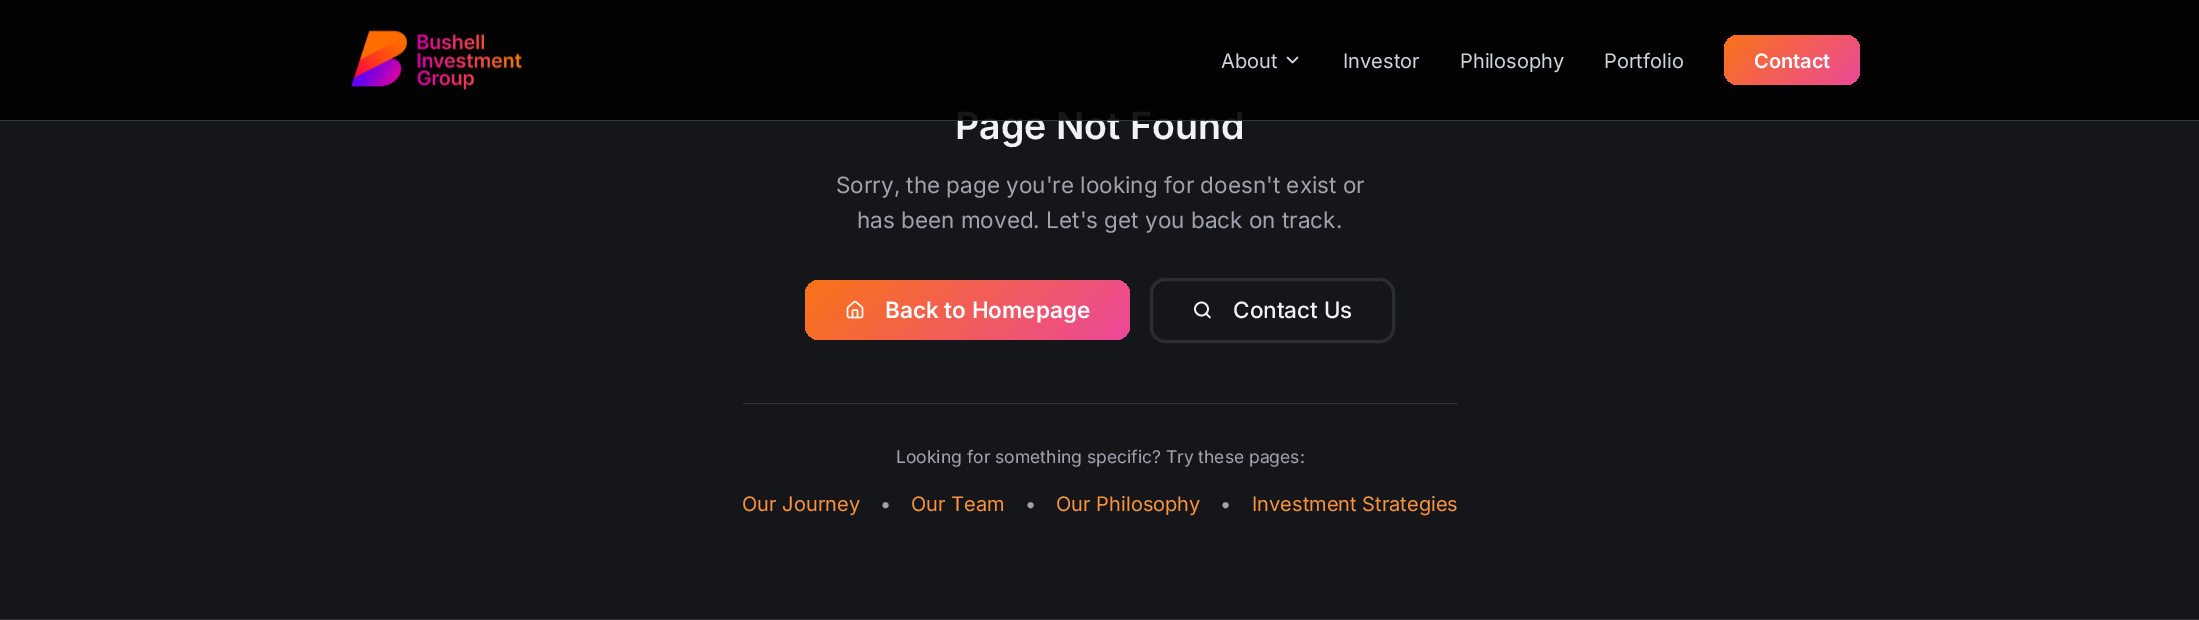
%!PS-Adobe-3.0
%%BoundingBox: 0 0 2199 620
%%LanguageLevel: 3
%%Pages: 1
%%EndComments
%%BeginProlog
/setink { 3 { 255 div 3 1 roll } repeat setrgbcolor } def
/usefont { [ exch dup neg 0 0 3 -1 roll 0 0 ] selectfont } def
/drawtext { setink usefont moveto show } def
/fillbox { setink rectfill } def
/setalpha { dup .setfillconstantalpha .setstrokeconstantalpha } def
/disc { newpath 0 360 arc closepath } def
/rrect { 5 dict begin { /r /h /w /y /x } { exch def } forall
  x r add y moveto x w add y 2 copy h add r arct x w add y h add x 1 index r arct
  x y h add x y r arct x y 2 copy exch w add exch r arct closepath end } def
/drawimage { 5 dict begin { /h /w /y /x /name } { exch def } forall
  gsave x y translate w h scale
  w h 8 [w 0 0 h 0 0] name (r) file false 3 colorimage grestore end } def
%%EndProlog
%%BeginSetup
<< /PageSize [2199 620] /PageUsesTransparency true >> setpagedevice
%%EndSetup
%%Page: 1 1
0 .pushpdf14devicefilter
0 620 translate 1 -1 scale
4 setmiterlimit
0 0 2199 620 21 22 25 fillbox
(Page Not Found) 955 139 /Inter-SemiBold 37.5 241 242 243 drawtext
0.9 setalpha
0 0 2199 121 0 0 0 fillbox
0.2 setalpha
0 120 2199 1 255 255 255 fillbox
1 setalpha
(assets/img1.rgb) 351 30 171 60 drawimage
(About) 1221 68 /Inter-Regular 20 209 213 219 drawtext
1.7 setlinewidth
1 setlinecap
1 setlinejoin
1287.5 57.5 moveto 1292.5 62.5 lineto 1297.5 57.5 lineto stroke
(Investor) 1343 68 /Inter-Regular 20 209 213 219 drawtext
(Philosophy) 1460 68 /Inter-Regular 20 209 213 219 drawtext
(Portfolio) 1604 68 /Inter-Regular 20 209 213 219 drawtext
gsave 1724 35 136 50 15 rrect clip newpath
<< /ShadingType 2 /ColorSpace /DeviceRGB /Coords [1745 13 1838 107] /Extend [true true] /Function << /FunctionType 2 /Domain [0 1] /C0 [0.976 0.451 0.086] /C1 [0.925 0.282 0.6] /N 1 >> >> shfill grestore
(Contact) 1754 68 /Inter-SemiBold 20 255 255 255 drawtext
(Sorry, the page you're looking for doesn't exist or) 836 193 /Inter-Regular 22.5 159 163 173 drawtext
(has been moved. Let's get you back on track.) 857 228 /Inter-Regular 22.5 159 163 173 drawtext
gsave 805 280 325 60 15 rrect clip newpath
<< /ShadingType 2 /ColorSpace /DeviceRGB /Coords [871 214 1064 406] /Extend [true true] /Function << /FunctionType 2 /Domain [0 1] /C0 [0.976 0.451 0.086] /C1 [0.925 0.282 0.6] /N 1 >> >> shfill grestore
(assets/img2.rgb) 846 300 18 19 drawimage
(Back to Homepage) 885 318 /Inter-SemiBold 22.5 255 255 255 drawtext
42 45 50 setink
3 setlinewidth
0 setlinecap
0 setlinejoin
1151.5 279.5 242 62 13.5 rrect stroke
241 242 243 setink
1.7 setlinewidth
1201.5 309 6.5 disc stroke
1 setlinecap
1 setlinejoin
1210 317.5 moveto 1206.5 314 lineto stroke
(Contact Us) 1233 318 /Inter-Medium 22.5 241 242 243 drawtext
743 403 715 1 47 50 55 fillbox
(Looking for something specific? Try these pages:) 896 463 /Inter-Regular 17.5 159 163 173 drawtext
(Our Journey) 742 511 /Inter-Regular 20 251 146 60 drawtext
(•) 880 511 /Inter-Regular 20 159 163 173 drawtext
(Our Team) 911 511 /Inter-Regular 20 251 146 60 drawtext
(•) 1025 511 /Inter-Regular 20 159 163 173 drawtext
(Our Philosophy) 1056 511 /Inter-Regular 20 251 146 60 drawtext
(•) 1220 511 /Inter-Regular 20 159 163 173 drawtext
(Investment Strategies) 1252 511 /Inter-Regular 20 251 146 60 drawtext
0 619 2199 1 47 50 55 fillbox
.poppdf14devicefilter showpage
%%EOF
